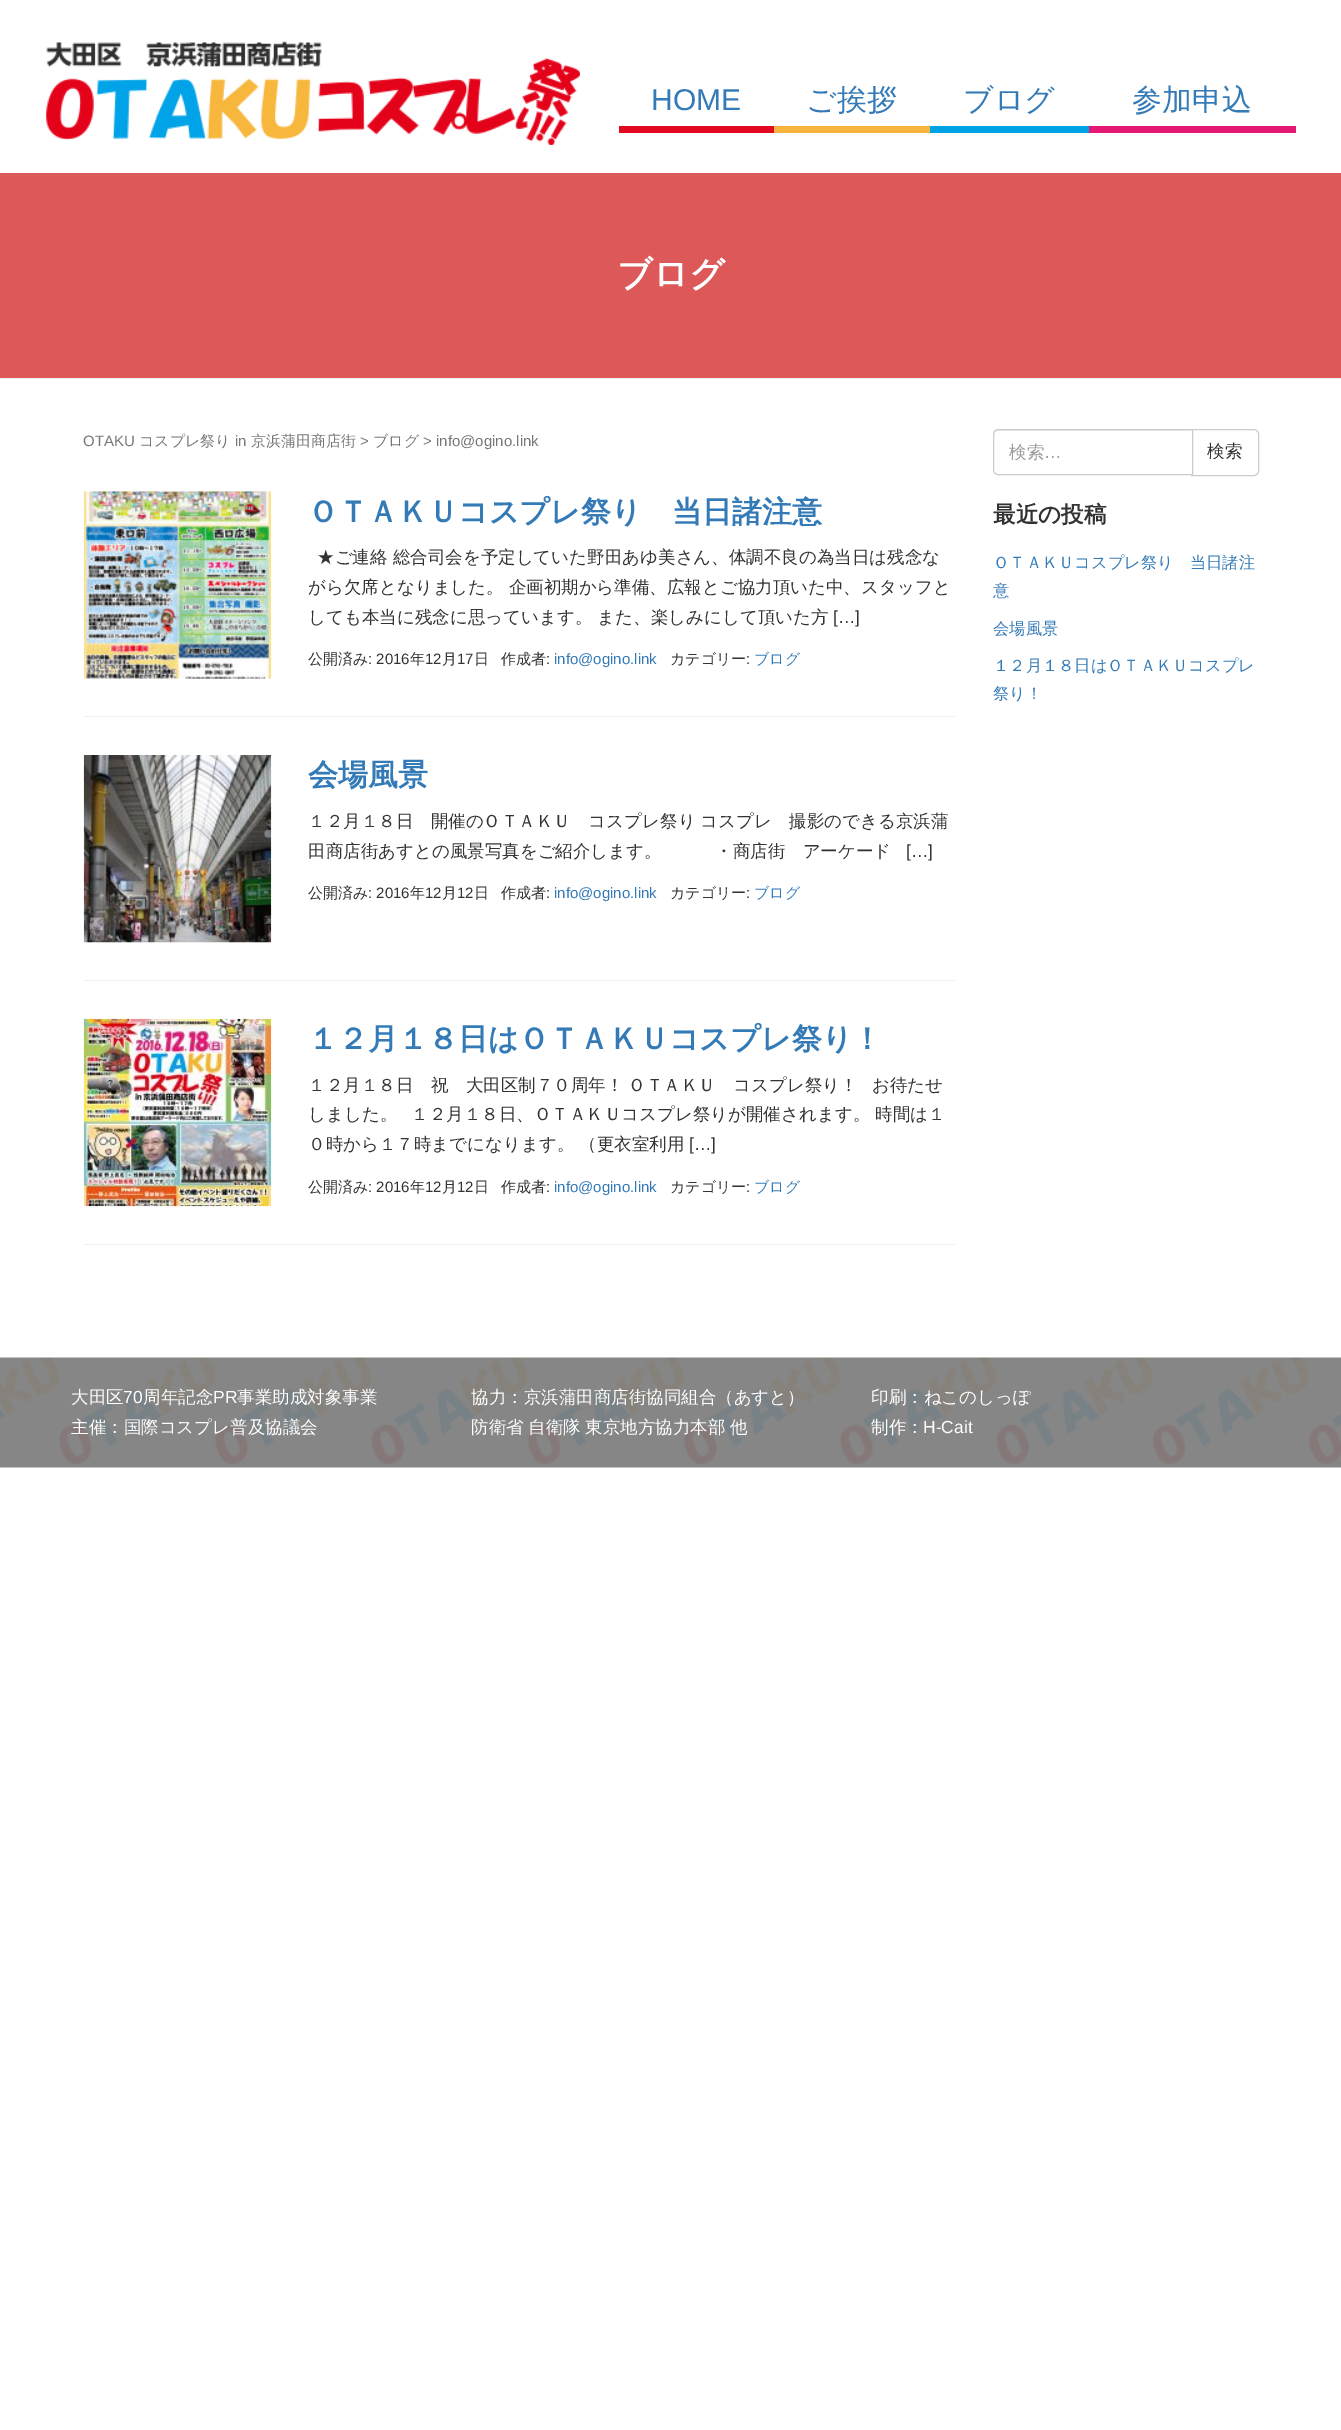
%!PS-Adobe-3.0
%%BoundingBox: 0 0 1341 2430
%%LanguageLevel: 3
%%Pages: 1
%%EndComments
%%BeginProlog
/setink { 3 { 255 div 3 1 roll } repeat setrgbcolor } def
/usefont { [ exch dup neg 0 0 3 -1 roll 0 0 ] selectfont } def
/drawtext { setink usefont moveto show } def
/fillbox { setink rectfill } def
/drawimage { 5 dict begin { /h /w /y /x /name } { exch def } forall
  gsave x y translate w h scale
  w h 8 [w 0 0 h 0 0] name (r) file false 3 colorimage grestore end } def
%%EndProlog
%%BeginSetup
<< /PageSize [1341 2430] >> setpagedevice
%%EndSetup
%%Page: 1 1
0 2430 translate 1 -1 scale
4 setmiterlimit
0 0 1341 2430 255 255 255 fillbox
(assets/img1.rgb) 46 41 534 104 drawimage
(HOME) 651 110 /LiberationSans-Regular 30 51 122 183 drawtext
619 126 155 7 227 9 32 fillbox
(ご挨拶) 806 110 /WenQuanYiZenHei-Medium 30 51 122 183 drawtext
774 126 156 7 247 181 62 fillbox
(ブログ) 963 110 /WenQuanYiZenHei-Medium 30 51 122 183 drawtext
930 126 159 7 0 162 230 fillbox
(参加申込) 1132 110 /WenQuanYiZenHei-Medium 30 51 122 183 drawtext
1089 126 207 7 227 25 117 fillbox
0 173 1341 205 221 88 88 fillbox
0 378 1341 1 238 238 238 fillbox
(ブログ) 617 286 /WenQuanYiZenHei-Bold 35 255 255 255 drawtext
(OTAKU) 83 446 /LiberationSans-Regular 15 119 119 119 drawtext
(コスプレ祭り) 139 446 /WenQuanYiZenHei-Medium 15 119 119 119 drawtext
(in) 235 446 /LiberationSans-Regular 15 119 119 119 drawtext
(京浜蒲田商店街) 251 446 /WenQuanYiZenHei-Medium 15 119 119 119 drawtext
(>) 360 446 /LiberationSans-Regular 15 119 119 119 drawtext
(ブログ) 373 446 /WenQuanYiZenHei-Medium 15 119 119 119 drawtext
(> info@ogino.link) 423 446 /LiberationSans-Regular 15 119 119 119 drawtext
84 716 871 1 238 238 238 fillbox
(assets/img2.rgb) 83 491 189 188 drawimage
(ＯＴＡＫＵコスプレ祭り　当日諸注意) 308 522 /WenQuanYiZenHei-Bold 30 51 122 183 drawtext
(★ご連絡 総合司会を予定していた野田あゆ美さん、体調不良の為当日は残念な) 317 563 /WenQuanYiZenHei-Medium 17.5 51 51 51 drawtext
308 593 moveto -0.5 0 32 (がら欠席となりました。 企画初期から準備、広報とご協力頂いた中、スタッフと) widthshow
(しても本当に残念に思っています。 また、楽しみにして頂いた方) 308 623 /WenQuanYiZenHei-Medium 17.5 51 51 51 drawtext
([…]) 833 623 /LiberationSans-Regular 17.5 51 51 51 drawtext
(公開済み) 308 664 /WenQuanYiZenHei-Medium 15 51 51 51 drawtext
(: 2016) 368 664 /LiberationSans-Regular 15 51 51 51 drawtext
(年) 410 664 /WenQuanYiZenHei-Medium 15 51 51 51 drawtext
(12) 425 664 /LiberationSans-Regular 15 51 51 51 drawtext
(月) 442 664 /WenQuanYiZenHei-Medium 15 51 51 51 drawtext
(17) 457 664 /LiberationSans-Regular 15 51 51 51 drawtext
(日) 474 664 /WenQuanYiZenHei-Medium 15 51 51 51 drawtext
(作成者) 501 664 /WenQuanYiZenHei-Medium 15 51 51 51 drawtext
(:) 546 664 /LiberationSans-Regular 15 51 51 51 drawtext
(info@ogino.link) 554 664 /LiberationSans-Regular 15 51 122 183 drawtext
(カテゴリー) 670 664 /WenQuanYiZenHei-Medium 15 51 51 51 drawtext
(:) 746 664 /LiberationSans-Regular 15 51 51 51 drawtext
(ブログ) 754 664 /WenQuanYiZenHei-Medium 15 51 122 183 drawtext
84 980 871 1 238 238 238 fillbox
(assets/img3.rgb) 83 755 189 188 drawimage
(会場風景) 308 785 /WenQuanYiZenHei-Bold 30 51 122 183 drawtext
/WenQuanYiZenHei-Medium 17.5 usefont
51 51 51 setink
308 827 moveto -0.5 0 32 (１２月１８日　開催のＯＴＡＫＵ　コスプレ祭り コスプレ　撮影のできる京浜蒲) widthshow
(田商店街あすとの風景写真をご紹介します。) 308 857 /WenQuanYiZenHei-Medium 17.5 51 51 51 drawtext
(・商店街　アーケード) 715 857 /WenQuanYiZenHei-Medium 17.5 51 51 51 drawtext
([…]) 906 857 /LiberationSans-Regular 17.5 51 51 51 drawtext
(公開済み) 308 898 /WenQuanYiZenHei-Medium 15 51 51 51 drawtext
(: 2016) 368 898 /LiberationSans-Regular 15 51 51 51 drawtext
(年) 410 898 /WenQuanYiZenHei-Medium 15 51 51 51 drawtext
(12) 425 898 /LiberationSans-Regular 15 51 51 51 drawtext
(月) 442 898 /WenQuanYiZenHei-Medium 15 51 51 51 drawtext
(12) 457 898 /LiberationSans-Regular 15 51 51 51 drawtext
(日) 474 898 /WenQuanYiZenHei-Medium 15 51 51 51 drawtext
(作成者) 501 898 /WenQuanYiZenHei-Medium 15 51 51 51 drawtext
(:) 546 898 /LiberationSans-Regular 15 51 51 51 drawtext
(info@ogino.link) 554 898 /LiberationSans-Regular 15 51 122 183 drawtext
(カテゴリー) 670 898 /WenQuanYiZenHei-Medium 15 51 51 51 drawtext
(:) 746 898 /LiberationSans-Regular 15 51 51 51 drawtext
(ブログ) 754 898 /WenQuanYiZenHei-Medium 15 51 122 183 drawtext
84 1244 871 1 238 238 238 fillbox
(assets/img4.rgb) 83 1018 189 189 drawimage
(１２月１８日はＯＴＡＫＵコスプレ祭り！) 308 1049 /WenQuanYiZenHei-Bold 30 51 122 183 drawtext
(１２月１８日　祝　大田区制７０周年！ ＯＴＡＫＵ　コスプレ祭り！) 308 1091 /WenQuanYiZenHei-Medium 17.5 51 51 51 drawtext
(お待たせ) 872 1091 /WenQuanYiZenHei-Medium 17.5 51 51 51 drawtext
(しました。) 308 1120 /WenQuanYiZenHei-Medium 17.5 51 51 51 drawtext
(１２月１８日、ＯＴＡＫＵコスプレ祭りが開催されます。 時間は１) 411 1120 /WenQuanYiZenHei-Medium 17.5 51 51 51 drawtext
(０時から１７時までになります。 （更衣室利用) 308 1150 /WenQuanYiZenHei-Medium 17.5 51 51 51 drawtext
([…]) 689 1150 /LiberationSans-Regular 17.5 51 51 51 drawtext
(公開済み) 308 1192 /WenQuanYiZenHei-Medium 15 51 51 51 drawtext
(: 2016) 368 1192 /LiberationSans-Regular 15 51 51 51 drawtext
(年) 410 1192 /WenQuanYiZenHei-Medium 15 51 51 51 drawtext
(12) 425 1192 /LiberationSans-Regular 15 51 51 51 drawtext
(月) 442 1192 /WenQuanYiZenHei-Medium 15 51 51 51 drawtext
(12) 457 1192 /LiberationSans-Regular 15 51 51 51 drawtext
(日) 474 1192 /WenQuanYiZenHei-Medium 15 51 51 51 drawtext
(作成者) 501 1192 /WenQuanYiZenHei-Medium 15 51 51 51 drawtext
(:) 546 1192 /LiberationSans-Regular 15 51 51 51 drawtext
(info@ogino.link) 554 1192 /LiberationSans-Regular 15 51 122 183 drawtext
(カテゴリー) 670 1192 /WenQuanYiZenHei-Medium 15 51 51 51 drawtext
(:) 746 1192 /LiberationSans-Regular 15 51 51 51 drawtext
(ブログ) 754 1192 /WenQuanYiZenHei-Medium 15 51 122 183 drawtext
204 204 204 setink
1191.5 429.5 moveto 1254 429.5 lineto 1256.5 429.5 1258.5 431.5 1258.5 434 curveto 1258.5 471 lineto 1258.5 473.5 1256.5 475.5 1254 475.5 curveto 1191.5 475.5 lineto closepath stroke
255 255 255 setink
998 429 moveto 1193 429 lineto 1193 475 lineto 998 475 lineto 995 475 993 473 993 470 curveto 993 434 lineto 993 431 995 429 998 429 curveto closepath fill
236 236 236 setink
998 431 moveto 1191 431 lineto 1191 430 lineto 997 430 lineto 995 431 994 433 994 435 curveto 994 433 995 431 998 431 curveto closepath fill
204 204 204 setink
998 429.5 moveto 1192.5 429.5 lineto 1192.5 474.5 lineto 998 474.5 lineto 995.5 474.5 993.5 472.5 993.5 470 curveto 993.5 434 lineto 993.5 431.5 995.5 429.5 998 429.5 curveto closepath stroke
(検索) 1009 458 /WenQuanYiZenHei-Medium 17.5 153 153 153 drawtext
(…) 1044 458 /LiberationSans-Regular 17.5 153 153 153 drawtext
(検索) 1207 457 /WenQuanYiZenHei-Medium 17.5 51 51 51 drawtext
(最近の投稿) 993 522 /WenQuanYiZenHei-Bold 22.5 51 51 51 drawtext
(ＯＴＡＫＵコスプレ祭り　当日諸注) 993 568 /WenQuanYiZenHei-Medium 16.25 51 122 183 drawtext
(意) 993 596 /WenQuanYiZenHei-Medium 16.25 51 122 183 drawtext
(会場風景) 993 634 /WenQuanYiZenHei-Medium 16.25 51 122 183 drawtext
(１２月１８日はＯＴＡＫＵコスプレ) 993 671 /WenQuanYiZenHei-Medium 16.25 51 122 183 drawtext
(祭り！) 993 699 /WenQuanYiZenHei-Medium 16.25 51 122 183 drawtext
(assets/img5.rgb) 0 1357 1341 111 drawimage
(大田区) 71 1403 /WenQuanYiZenHei-Medium 17.5 255 255 255 drawtext
(70) 123 1403 /LiberationSans-Regular 17.5 255 255 255 drawtext
(周年記念) 143 1403 /WenQuanYiZenHei-Medium 17.5 255 255 255 drawtext
(PR) 213 1403 /LiberationSans-Regular 17.5 255 255 255 drawtext
(事業助成対象事業) 237 1403 /WenQuanYiZenHei-Medium 17.5 255 255 255 drawtext
(主催：国際コスプレ普及協議会) 71 1433 /WenQuanYiZenHei-Medium 17.5 255 255 255 drawtext
(協力：京浜蒲田商店街協同組合（あすと）) 471 1403 /WenQuanYiZenHei-Medium 17.5 255 255 255 drawtext
471 1433 moveto -0.5 0 32 (防衛省 自衛隊 東京地方協力本部 他) widthshow
(印刷：ねこのしっぽ) 871 1403 /WenQuanYiZenHei-Medium 17.5 255 255 255 drawtext
(制作：) 871 1433 /WenQuanYiZenHei-Medium 17.5 255 255 255 drawtext
(H-Cait) 923 1433 /LiberationSans-Regular 17.5 255 255 255 drawtext
showpage
%%EOF
